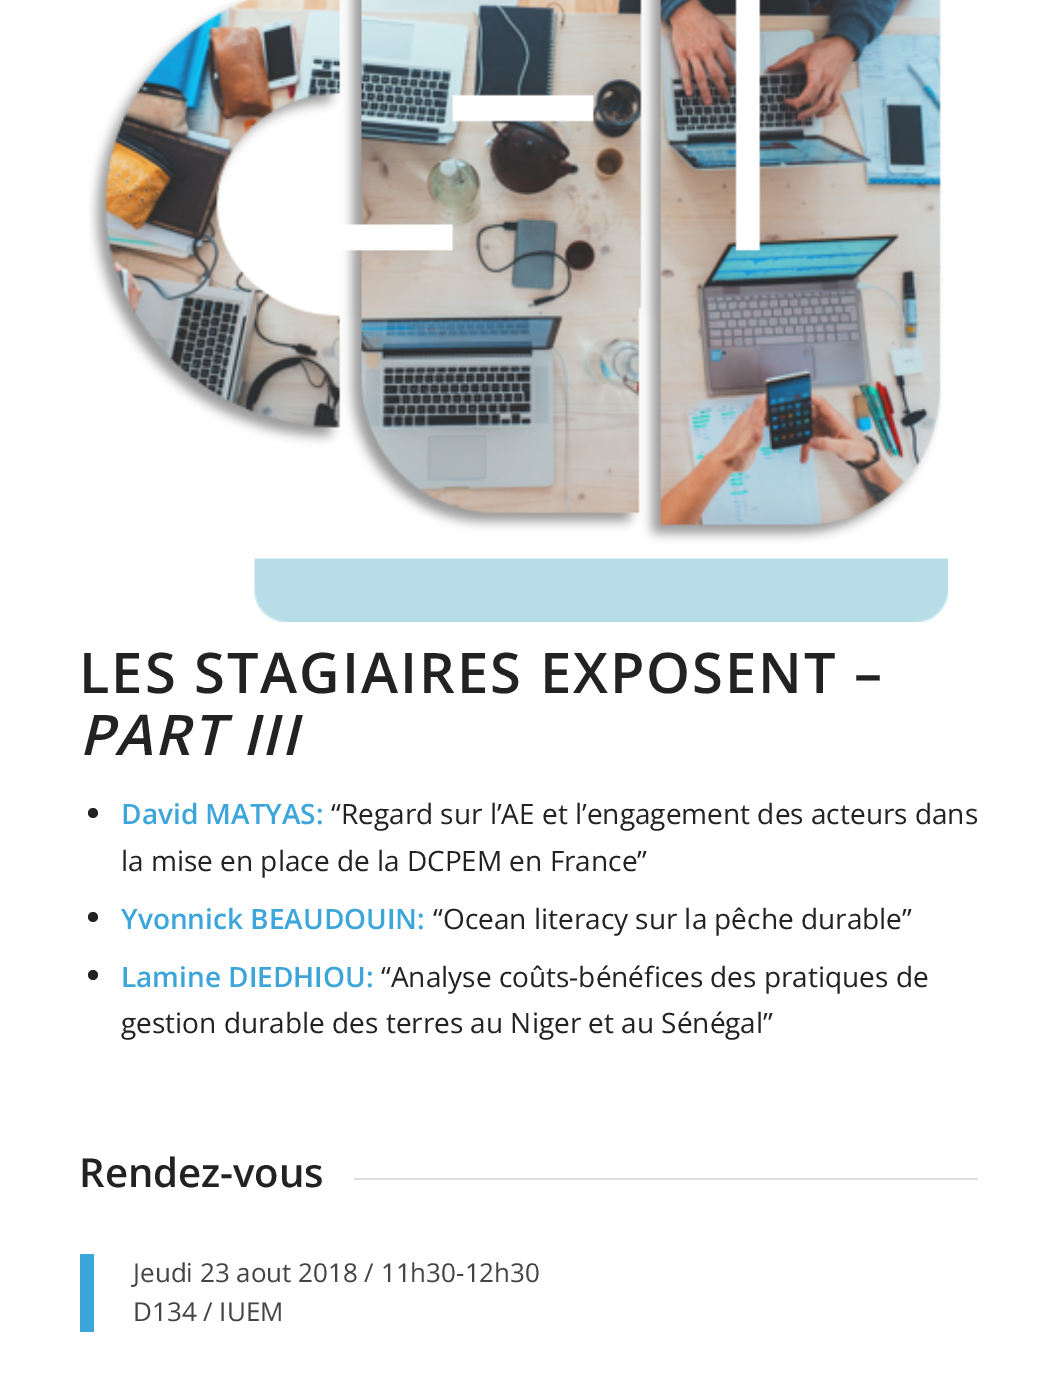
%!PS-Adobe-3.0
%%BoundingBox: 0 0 1058 1378
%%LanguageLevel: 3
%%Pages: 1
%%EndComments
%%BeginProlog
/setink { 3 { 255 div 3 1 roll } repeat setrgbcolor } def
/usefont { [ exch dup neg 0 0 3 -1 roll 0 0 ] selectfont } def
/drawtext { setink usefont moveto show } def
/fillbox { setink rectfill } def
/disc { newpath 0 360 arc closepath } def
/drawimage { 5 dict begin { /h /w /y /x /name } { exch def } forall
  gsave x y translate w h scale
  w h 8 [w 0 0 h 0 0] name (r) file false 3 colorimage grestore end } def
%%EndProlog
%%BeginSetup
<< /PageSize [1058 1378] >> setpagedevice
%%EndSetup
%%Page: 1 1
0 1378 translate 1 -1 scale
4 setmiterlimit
0 0 1058 1378 255 255 255 fillbox
(assets/img1.rgb) 89 0 859 622 drawimage
/OpenSans-SemiBold 56 usefont
34 34 34 setink
79 693 moveto 2 0 (LES STAGIAIRES EXPOSENT –) ashow
/OpenSans-SemiBoldItalic 56 usefont
79 755 moveto 2 0 (PART III) ashow
93 813 5 disc fill
(David MATYAS:) 121 824 /OpenSans-SemiBold 28 60 165 218 drawtext
(“Regard sur l’AE et l’engagement des acteurs dans) 331 824 /OpenSans-Regular 28 34 34 34 drawtext
(la mise en place de la DCPEM en France”) 121 871 /OpenSans-Regular 28 34 34 34 drawtext
93 917 5 disc fill
(Yvonnick BEAUDOUIN:) 121 929 /OpenSans-SemiBold 28 60 165 218 drawtext
(“Ocean literacy sur la pêche durable”) 433 929 /OpenSans-Regular 28 34 34 34 drawtext
93 975 5 disc fill
(Lamine DIEDHIOU:) 121 987 /OpenSans-SemiBold 28 60 165 218 drawtext
(“Analyse coûts-bénéfices des pratiques de) 381 987 /OpenSans-Regular 28 34 34 34 drawtext
(gestion durable des terres au Niger et au Sénégal”) 121 1033 /OpenSans-Regular 28 34 34 34 drawtext
(Rendez-vous) 79 1187 /OpenSans-SemiBold 40 34 34 34 drawtext
354 1178 624 2 222 222 222 fillbox
80 1254 14 78 60 165 218 fillbox
(Jeudi 23 aout 2018 / 11h30-12h30) 133 1282 /OpenSans-Regular 26 68 68 68 drawtext
(D134 / IUEM) 133 1321 /OpenSans-Regular 26 68 68 68 drawtext
showpage
%%EOF
